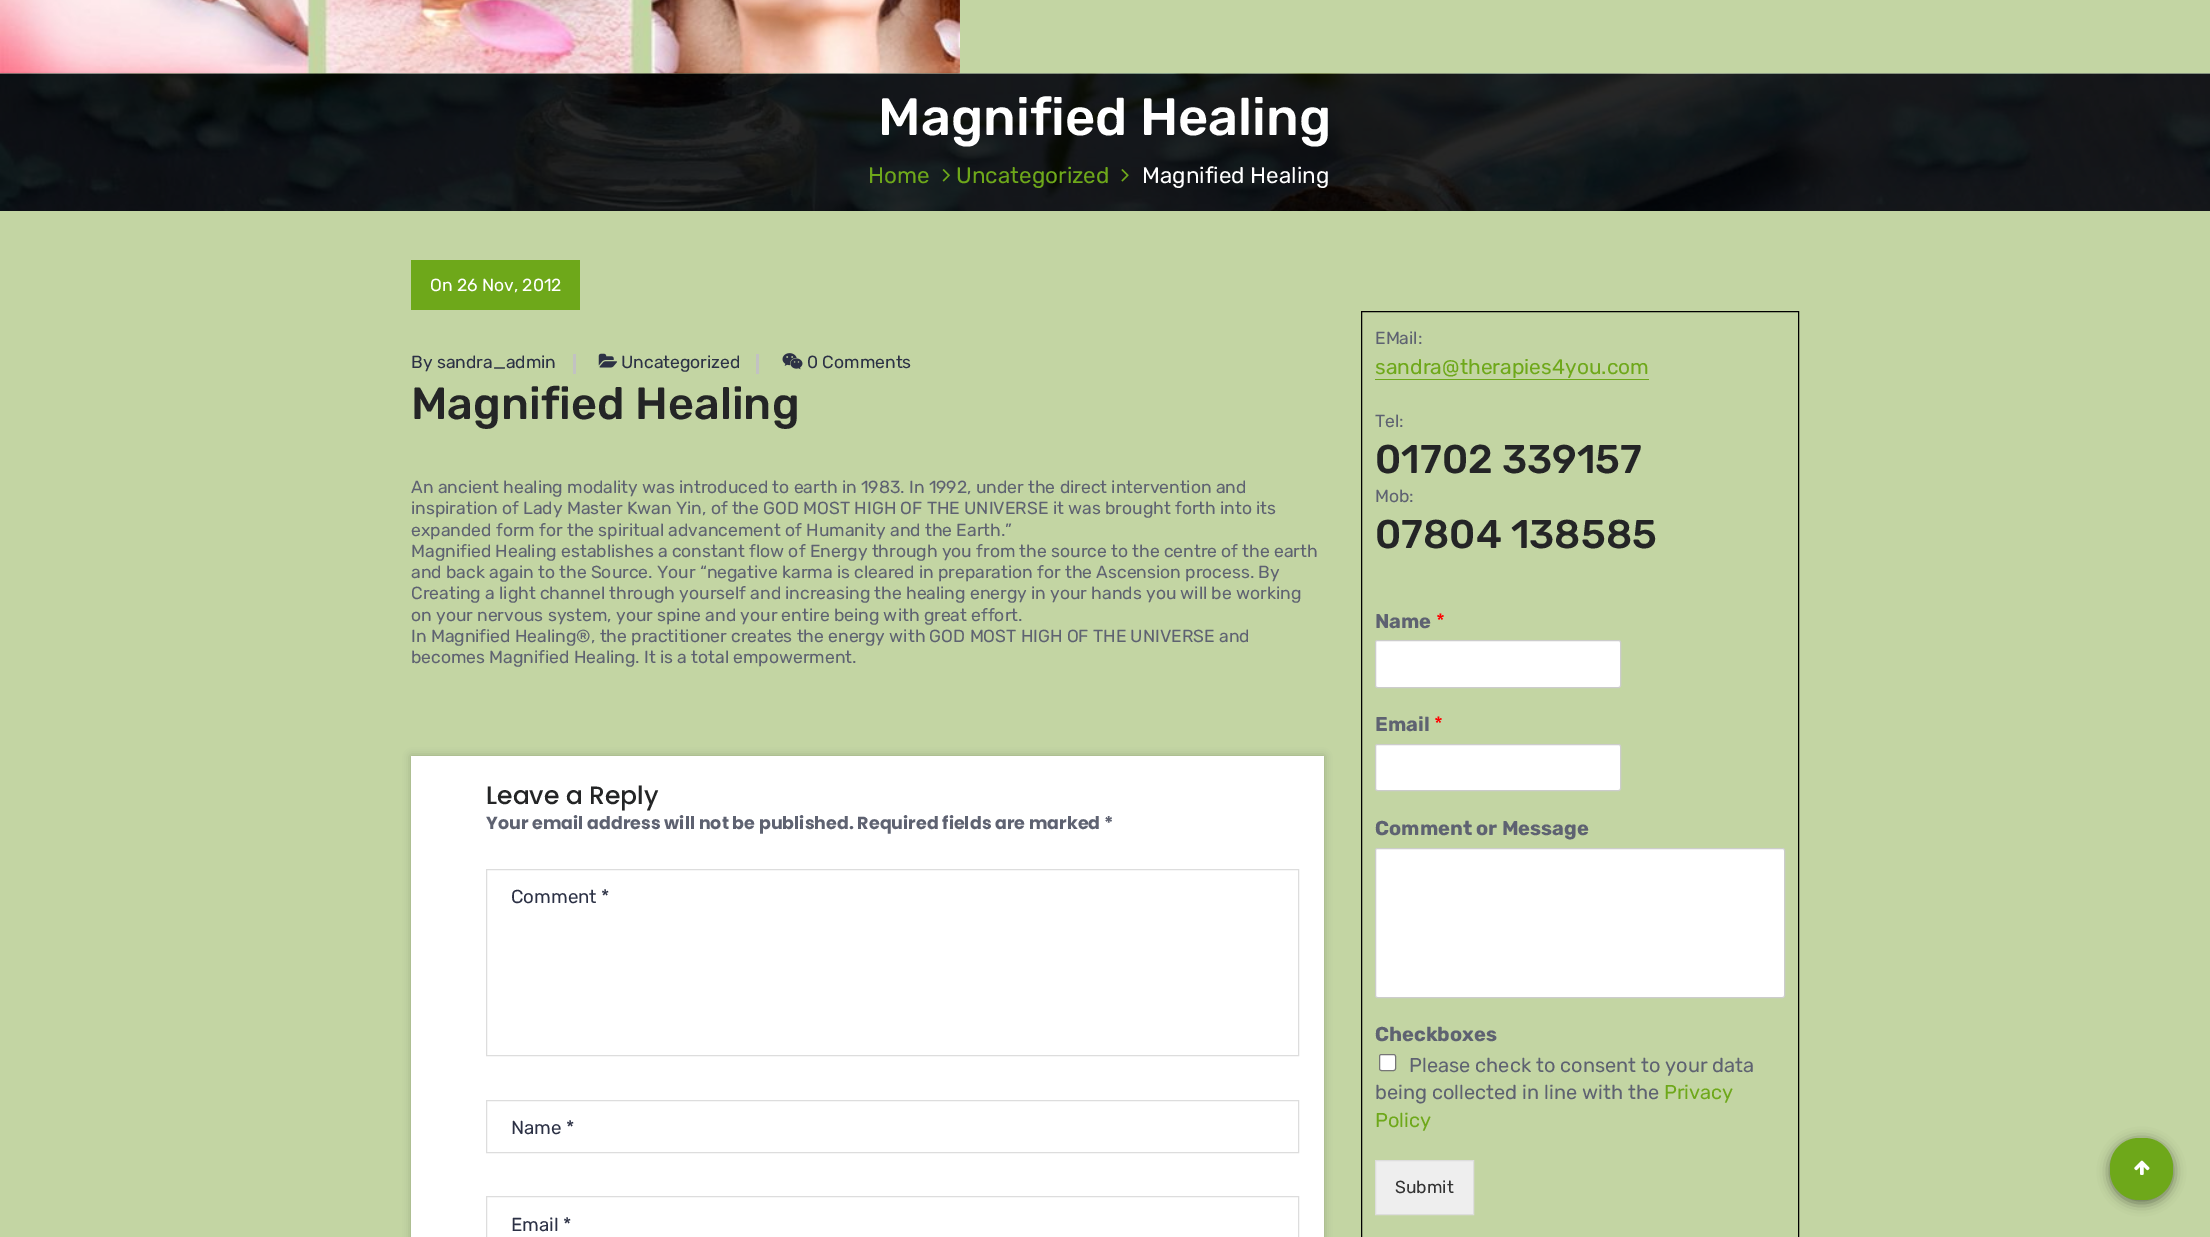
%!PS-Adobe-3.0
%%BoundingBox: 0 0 2210 1237
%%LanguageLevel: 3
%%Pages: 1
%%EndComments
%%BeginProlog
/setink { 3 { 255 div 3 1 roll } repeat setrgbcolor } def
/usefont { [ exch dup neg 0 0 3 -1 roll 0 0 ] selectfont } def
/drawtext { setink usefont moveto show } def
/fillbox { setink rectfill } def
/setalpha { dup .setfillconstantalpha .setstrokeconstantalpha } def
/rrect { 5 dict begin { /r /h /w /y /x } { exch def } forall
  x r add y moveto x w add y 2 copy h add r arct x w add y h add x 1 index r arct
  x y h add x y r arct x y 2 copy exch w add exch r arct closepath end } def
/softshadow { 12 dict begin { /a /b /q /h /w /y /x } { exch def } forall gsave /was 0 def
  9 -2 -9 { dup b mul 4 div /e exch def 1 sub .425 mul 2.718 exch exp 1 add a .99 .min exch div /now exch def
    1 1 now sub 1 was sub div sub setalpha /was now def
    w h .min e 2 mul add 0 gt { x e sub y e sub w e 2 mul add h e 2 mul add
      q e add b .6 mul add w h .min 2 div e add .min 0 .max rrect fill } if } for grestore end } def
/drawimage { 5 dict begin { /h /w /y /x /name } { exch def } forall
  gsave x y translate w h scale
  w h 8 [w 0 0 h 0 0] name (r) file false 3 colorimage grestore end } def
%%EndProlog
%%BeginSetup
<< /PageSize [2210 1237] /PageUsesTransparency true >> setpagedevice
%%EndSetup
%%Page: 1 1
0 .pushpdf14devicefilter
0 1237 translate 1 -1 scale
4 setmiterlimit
0 0 2210 1237 195 213 163 fillbox
(assets/img1.rgb) 0 0 960 74 drawimage
(assets/img2.rgb) 0 73 2210 138 drawimage
(Magnified Healing) 878 135 /Rubik-Medium 52.5 255 255 255 drawtext
(Home) 868 183 /Rubik-Regular 22.5 110 168 26 drawtext
(assets/img3.rgb) 942 169 8 13 drawimage
(Uncategorized) 956 183 /Rubik-Regular 22.5 110 168 26 drawtext
(assets/img4.rgb) 1121 169 8 13 drawimage
(Magnified Healing) 1142 183 /Rubik-Regular 22.5 255 255 255 drawtext
411 260 169 50 110 168 26 fillbox
(On 26 Nov, 2012) 430 291 /Rubik-Regular 17.5 255 255 255 drawtext
(By sandra_admin) 411 368 /Rubik-Regular 17.5 44 49 69 drawtext
573 354 3 20 194 194 194 fillbox
(assets/img5.rgb) 598 353 20 15 drawimage
(Uncategorized) 621 368 /Rubik-Regular 17.5 44 49 69 drawtext
756 354 3 20 194 194 194 fillbox
(assets/img6.rgb) 782 353 21 17 drawimage
(0 Comments) 807 368 /Rubik-Regular 17.5 44 49 69 drawtext
(Magnified Healing) 411 419 /Rubik-Medium 45 36 37 38 drawtext
(An ancient healing modality was introduced to earth in 1983. In 1992, under the direct intervention and) 411 493 /Rubik-Regular 17.5 94 98 113 drawtext
(inspiration of Lady Master Kwan Yin, of the GOD MOST HIGH OF THE UNIVERSE it was brought forth into its) 411 514 /Rubik-Regular 17.5 94 98 113 drawtext
(expanded form for the spiritual advancement of Humanity and the Earth.”) 411 536 /Rubik-Regular 17.5 94 98 113 drawtext
(Magnified Healing establishes a constant flow of Energy through you from the source to the centre of the earth) 411 557 /Rubik-Regular 17.5 94 98 113 drawtext
(and back again to the Source. Your “negative karma is cleared in preparation for the Ascension process. By) 411 578 /Rubik-Regular 17.5 94 98 113 drawtext
(Creating a light channel through yourself and increasing the healing energy in your hands you will be working) 411 599 /Rubik-Regular 17.5 94 98 113 drawtext
(on your nervous system, your spine and your entire being with great effort.) 411 621 /Rubik-Regular 17.5 94 98 113 drawtext
(In Magnified Healing®, the practitioner creates the energy with GOD MOST HIGH OF THE UNIVERSE and) 411 642 /Rubik-Regular 17.5 94 98 113 drawtext
(becomes Magnified Healing. It is a total empowerment.) 411 663 /Rubik-Regular 17.5 94 98 113 drawtext
0 0 0 setink
411 756 913 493 0 4 0.2 softshadow
411 756 913 481 255 255 255 fillbox
(Leave a Reply) 486 804 /Poppins-Medium 25 36 37 38 drawtext
(Your email address will not be published. Required fields are marked *) 486 829 /Poppins-Bold 17.5 94 98 113 drawtext
221 221 221 setink
486.5 869.5 812 186 rectstroke
(Comment *) 511 903 /Rubik-Regular 18.75 44 49 69 drawtext
221 221 221 setink
486.5 1100.5 812 52 rectstroke
(Name *) 511 1134 /Rubik-Regular 18.75 44 49 69 drawtext
221 221 221 setink
486.5 1196.5 812 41 rectstroke
(Email *) 511 1231 /Rubik-Regular 18.75 44 49 69 drawtext
0 0 0 setink
1361.5 311.5 437 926 rectstroke
(EMail:) 1375 344 /Rubik-Regular 17.5 94 98 113 drawtext
(sandra@therapies4you.com) 1375 374 /Rubik-Regular 21 110 168 26 drawtext
1375 379 274 1 110 168 26 fillbox
(Tel:) 1375 427 /Rubik-Regular 17.5 94 98 113 drawtext
(01702 339157) 1375 473 /Rubik-Medium 40 36 37 38 drawtext
(Mob:) 1375 502 /Rubik-Regular 17.5 94 98 113 drawtext
(07804 138585) 1375 548 /Rubik-Medium 40 36 37 38 drawtext
(Name) 1375 628 /Rubik-Bold 20 94 98 113 drawtext
(*) 1436 628 /Rubik-Regular 20 255 0 0 drawtext
255 255 255 setink
1375.5 640.5 245 47 2 rrect gsave fill grestore
204 204 204 setink
stroke
(Email) 1375 731 /Rubik-Bold 20 94 98 113 drawtext
(*) 1434 731 /Rubik-Regular 20 255 0 0 drawtext
255 255 255 setink
1375.5 744.5 245 46 2 rrect gsave fill grestore
204 204 204 setink
stroke
(Comment or Message) 1375 835 /Rubik-Bold 20 94 98 113 drawtext
255 255 255 setink
1375.5 848.5 409 149 2 rrect gsave fill grestore
204 204 204 setink
stroke
(Checkboxes) 1375 1041 /Rubik-Bold 20 94 98 113 drawtext
255 255 255 setink
1379.5 1054.5 16 16 2 rrect gsave fill grestore
118 118 118 setink
stroke
(Please check to consent to your data) 1409 1072 /Rubik-Regular 20 94 98 113 drawtext
(being collected in line with the) 1375 1099 /Rubik-Regular 20 94 98 113 drawtext
(Privacy) 1664 1099 /Rubik-Regular 20 110 168 26 drawtext
(Policy) 1375 1127 /Rubik-Regular 20 110 168 26 drawtext
238 238 238 setink
1375.5 1160.5 moveto 1473.5 1160.5 lineto 1473.5 1214.5 lineto 1375.5 1214.5 lineto closepath gsave fill grestore
221 221 221 setink
stroke
(Submit) 1395 1193 /Rubik-Regular 17.5 51 51 51 drawtext
0 0 0 setink
2110 1140 63 63 29 6 0.5 softshadow
110 168 26 setink
2110 1138 63 62 29 rrect fill
(assets/img7.rgb) 2134 1160 16 15 drawimage
.poppdf14devicefilter showpage
%%EOF
